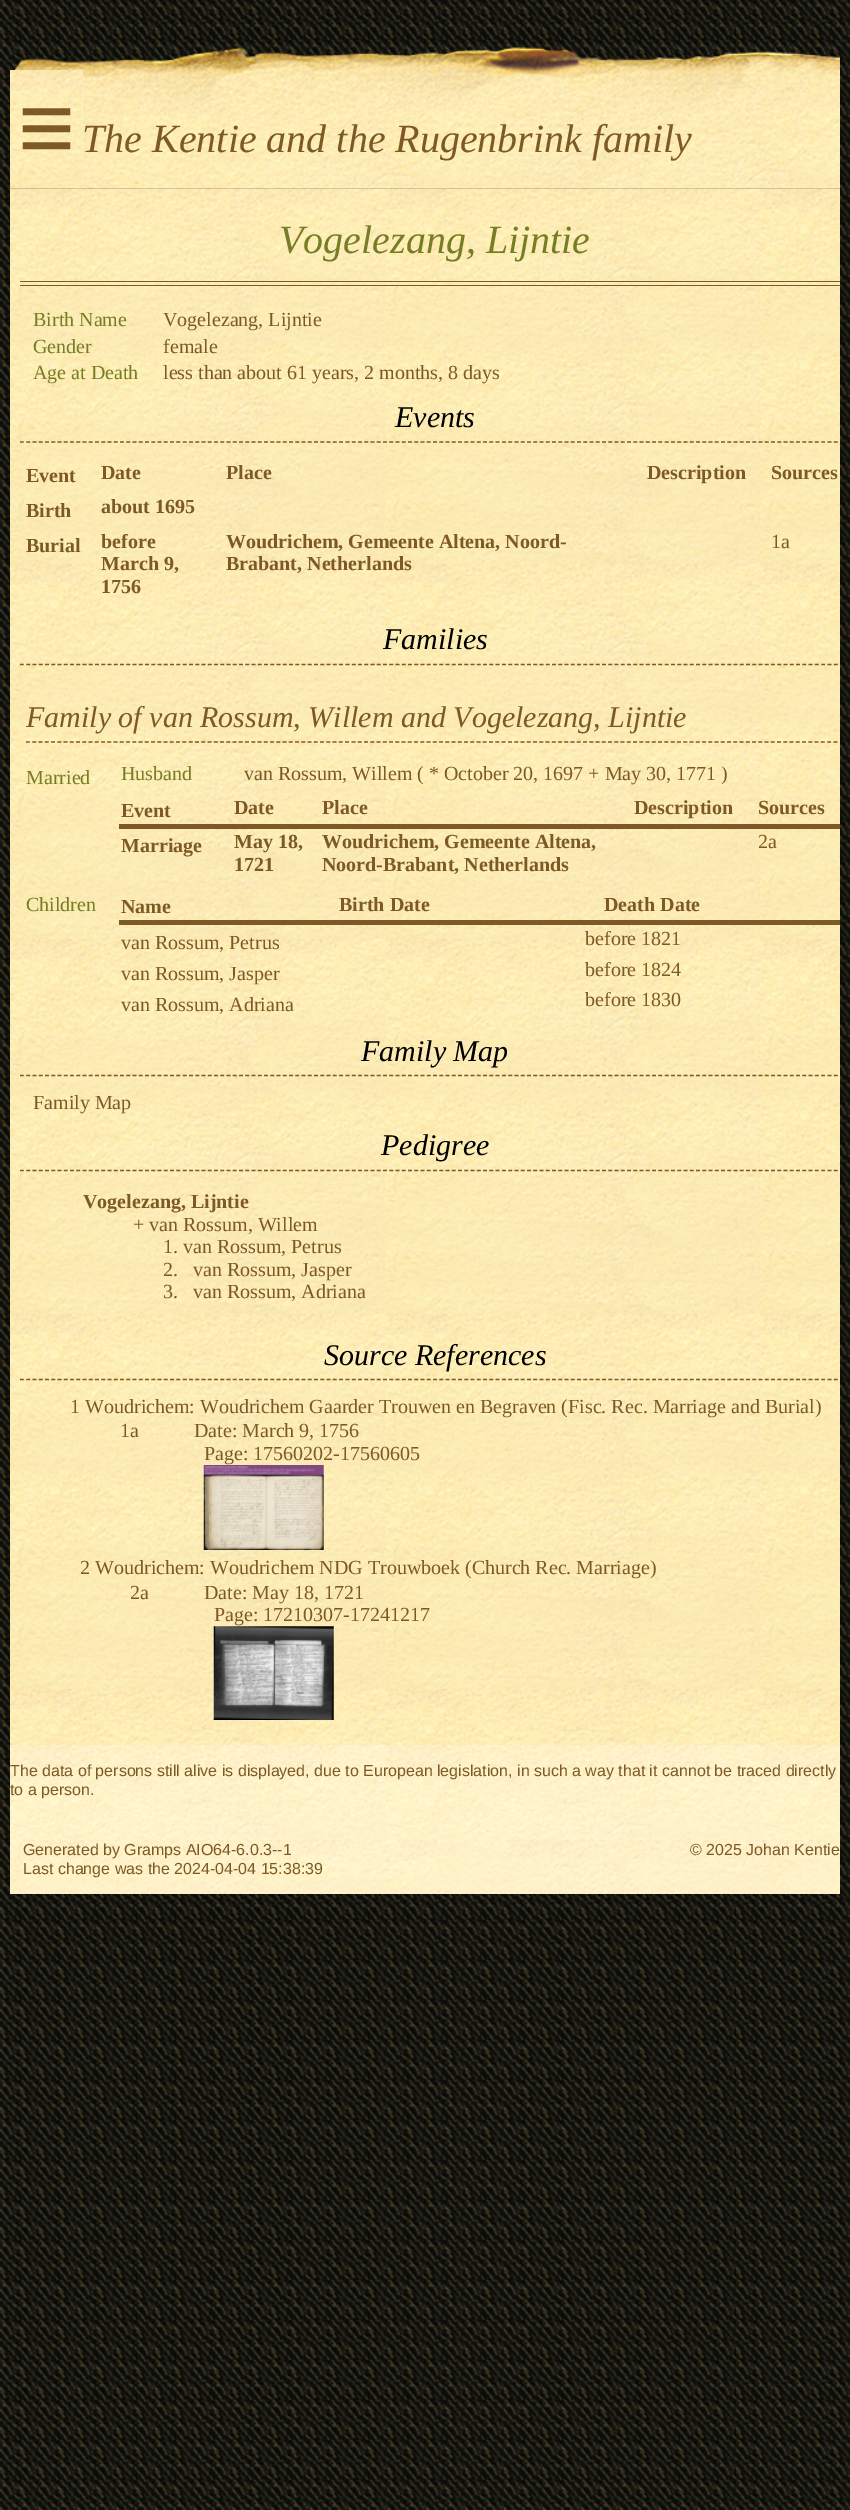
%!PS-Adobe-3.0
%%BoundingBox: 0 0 850 2510
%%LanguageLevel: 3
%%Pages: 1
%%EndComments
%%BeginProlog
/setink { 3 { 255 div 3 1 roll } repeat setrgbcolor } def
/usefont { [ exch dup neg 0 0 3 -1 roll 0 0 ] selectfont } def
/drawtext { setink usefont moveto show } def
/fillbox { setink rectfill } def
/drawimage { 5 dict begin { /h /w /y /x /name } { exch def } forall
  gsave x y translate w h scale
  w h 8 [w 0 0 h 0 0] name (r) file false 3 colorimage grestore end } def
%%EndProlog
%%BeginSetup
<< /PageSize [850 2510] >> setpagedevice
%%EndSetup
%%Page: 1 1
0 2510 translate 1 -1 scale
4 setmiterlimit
0 0 850 2510 255 255 255 fillbox
(assets/img1.rgb) 0 0 850 2510 drawimage
(assets/img2.rgb) 10 47 830 142 drawimage
82 70 1 116 255 242 198 fillbox
(assets/img3.rgb) 10 70 73 116 drawimage
(≡) 18 161 /LiberationSans-Regular 98 125 89 37 drawtext
(The Kentie and the Rugenbrink family) 82 152 /LiberationSerif-Italic 40 125 89 37 drawtext
(assets/img4.rgb) 10 188 830 1557 drawimage
20 281 820 1 125 89 37 fillbox
20 285 820 1 125 89 37 fillbox
(Vogelezang, Lijntie) 279 253 /LiberationSerif-Italic 40 118 125 37 drawtext
(Birth Name) 33 326 /LiberationSerif-Regular 20 118 125 37 drawtext
(Vogelezang, Lijntie) 163 326 /LiberationSerif-Regular 20 125 89 37 drawtext
(Gender) 33 353 /LiberationSerif-Regular 20 118 125 37 drawtext
(female) 163 353 /LiberationSerif-Regular 20 125 89 37 drawtext
(Age at Death) 33 379 /LiberationSerif-Regular 20 118 125 37 drawtext
(less than about 61 years, 2 months, 8 days) 163 379 /LiberationSerif-Regular 20 125 89 37 drawtext
gsave
20 386 820 222 rectclip
1.2 setlinewidth
[3.75 2.51] 0 setdash
20 442 moveto 850 442 lineto stroke
grestore
(Events) 395 427 /LiberationSerif-Italic 30 0 0 0 drawtext
(Event) 26 482 /LiberationSerif-Bold 20 125 89 37 drawtext
(Date) 101 479 /LiberationSerif-Bold 20 125 89 37 drawtext
(Place) 226 479 /LiberationSerif-Bold 20 125 89 37 drawtext
(Description) 647 479 /LiberationSerif-Bold 20 125 89 37 drawtext
(Sources) 771 479 /LiberationSerif-Bold 20 125 89 37 drawtext
(Birth) 26 517 /LiberationSerif-Bold 20 125 89 37 drawtext
(about 1695) 101 513 /LiberationSerif-Bold 20 125 89 37 drawtext
(Burial) 26 552 /LiberationSerif-Bold 20 125 89 37 drawtext
(before) 101 548 /LiberationSerif-Bold 20 125 89 37 drawtext
(March 9,) 101 570 /LiberationSerif-Bold 20 125 89 37 drawtext
(1756) 101 593 /LiberationSerif-Bold 20 125 89 37 drawtext
(Woudrichem, Gemeente Altena, Noord-) 226 548 /LiberationSerif-Bold 20 125 89 37 drawtext
(Brabant, Netherlands) 226 570 /LiberationSerif-Bold 20 125 89 37 drawtext
(1a) 771 548 /LiberationSerif-Regular 20 125 89 37 drawtext
gsave
20 608 820 412 rectclip
1.2 setlinewidth
[3.75 2.51] 0 setdash
20 664.5 moveto 850 664.5 lineto stroke
grestore
(Families) 383 649 /LiberationSerif-Italic 30 0 0 0 drawtext
125 89 37 setink
1.2 setlinewidth
[3.75 2.51] 0 setdash
26 742 moveto 837.5 742 lineto stroke
(Family of van Rossum, Willem and Vogelezang, Lijntie) 26 727 /LiberationSerif-Italic 30 125 89 37 drawtext
(Married) 26 784 /LiberationSerif-Regular 20 118 125 37 drawtext
(Husband) 121 780 /LiberationSerif-Regular 20 118 125 37 drawtext
(van Rossum, Willem \( * October 20, 1697 + May 30, 1771 \)) 244 780 /LiberationSerif-Regular 20 125 89 37 drawtext
(Event) 121 817 /LiberationSerif-Bold 20 125 89 37 drawtext
(Date) 234 814 /LiberationSerif-Bold 20 125 89 37 drawtext
(Place) 322 814 /LiberationSerif-Bold 20 125 89 37 drawtext
(Description) 634 814 /LiberationSerif-Bold 20 125 89 37 drawtext
119 824 721 5 125 89 37 fillbox
(Sources) 758 814 /LiberationSerif-Bold 20 125 89 37 drawtext
(Marriage) 121 852 /LiberationSerif-Bold 20 125 89 37 drawtext
(May 18,) 234 848 /LiberationSerif-Bold 20 125 89 37 drawtext
(1721) 234 871 /LiberationSerif-Bold 20 125 89 37 drawtext
(Woudrichem, Gemeente Altena,) 322 848 /LiberationSerif-Bold 20 125 89 37 drawtext
(Noord-Brabant, Netherlands) 322 871 /LiberationSerif-Bold 20 125 89 37 drawtext
(2a) 758 848 /LiberationSerif-Regular 20 125 89 37 drawtext
(Children) 26 911 /LiberationSerif-Regular 20 118 125 37 drawtext
(Name) 121 913 /LiberationSerif-Bold 20 125 89 37 drawtext
(Birth Date) 339 911 /LiberationSerif-Bold 20 125 89 37 drawtext
119 920 721 5 125 89 37 fillbox
(Death Date) 604 911 /LiberationSerif-Bold 20 125 89 37 drawtext
(van Rossum, Petrus) 121 949 /LiberationSerif-Regular 20 125 89 37 drawtext
(before 1821) 585 945 /LiberationSerif-Regular 20 125 89 37 drawtext
(van Rossum, Jasper) 121 980 /LiberationSerif-Regular 20 125 89 37 drawtext
(before 1824) 585 976 /LiberationSerif-Regular 20 125 89 37 drawtext
(van Rossum, Adriana) 121 1011 /LiberationSerif-Regular 20 125 89 37 drawtext
(before 1830) 585 1006 /LiberationSerif-Regular 20 125 89 37 drawtext
gsave
20 1020 820 94 rectclip
20 1075.5 moveto 850 1075.5 lineto stroke
grestore
(Family Map) 361 1061 /LiberationSerif-Italic 30 0 0 0 drawtext
(Family Map) 33 1109 /LiberationSerif-Regular 20 125 89 37 drawtext
gsave
20 1114 820 210 rectclip
20 1170.5 moveto 850 1170.5 lineto stroke
grestore
(Pedigree) 381 1155 /LiberationSerif-Italic 30 0 0 0 drawtext
(Vogelezang, Lijntie) 83 1208 /LiberationSerif-Bold 20 125 89 37 drawtext
(+ van Rossum, Willem) 133 1231 /LiberationSerif-Regular 20 125 89 37 drawtext
(1. van Rossum, Petrus) 163 1253 /LiberationSerif-Regular 20 125 89 37 drawtext
(2.) 163 1276 /LiberationSerif-Regular 20 125 89 37 drawtext
(van Rossum, Jasper) 193 1276 /LiberationSerif-Regular 20 125 89 37 drawtext
(3.) 163 1298 /LiberationSerif-Regular 20 125 89 37 drawtext
(van Rossum, Adriana) 193 1298 /LiberationSerif-Regular 20 125 89 37 drawtext
gsave
20 1324 820 421 rectclip
20 1379.5 moveto 850 1379.5 lineto stroke
grestore
(Source References) 324 1365 /LiberationSerif-Italic 30 0 0 0 drawtext
(1 Woudrichem: Woudrichem Gaarder Trouwen en Begraven \(Fisc. Rec. Marriage and Burial\)) 70 1413 /LiberationSerif-Regular 20 125 89 37 drawtext
(1a) 120 1437 /LiberationSerif-Regular 20 125 89 37 drawtext
(Date: March 9, 1756) 194 1437 /LiberationSerif-Regular 20 125 89 37 drawtext
(Page: 17560202-17560605) 204 1460 /LiberationSerif-Regular 20 125 89 37 drawtext
(assets/img5.rgb) 203 1465 121 85 drawimage
(2 Woudrichem: Woudrichem NDG Trouwboek \(Church Rec. Marriage\)) 80 1574 /LiberationSerif-Regular 20 125 89 37 drawtext
(2a) 130 1599 /LiberationSerif-Regular 20 125 89 37 drawtext
(Date: May 18, 1721) 204 1599 /LiberationSerif-Regular 20 125 89 37 drawtext
(Page: 17210307-17241217) 214 1621 /LiberationSerif-Regular 20 125 89 37 drawtext
(assets/img6.rgb) 213 1626 121 94 drawimage
10 1893 830 1 255 242 198 fillbox
(assets/img7.rgb) 10 1745 830 149 drawimage
(assets/img8.rgb) 10 1761 830 48 drawimage
(The data of persons still alive is displayed, due to European legislation, in such a way that it cannot be traced directly) 10 1776 /LiberationSans-Regular 16 125 89 37 drawtext
(to a person.) 10 1795 /LiberationSans-Regular 16 125 89 37 drawtext
23 1840 415 38 255 242 198 fillbox
(assets/img9.rgb) 22 1840 415 38 drawimage
(Generated by Gramps AIO64-6.0.3--1) 23 1855 /LiberationSans-Regular 16 125 89 37 drawtext
(Last change was the 2024-04-04 15:38:39) 23 1874 /LiberationSans-Regular 16 125 89 37 drawtext
(assets/img10.rgb) 507 1840 333 19 drawimage
(© 2025 Johan Kentie) 690 1855 /LiberationSans-Regular 16 125 89 37 drawtext
showpage
%%EOF
